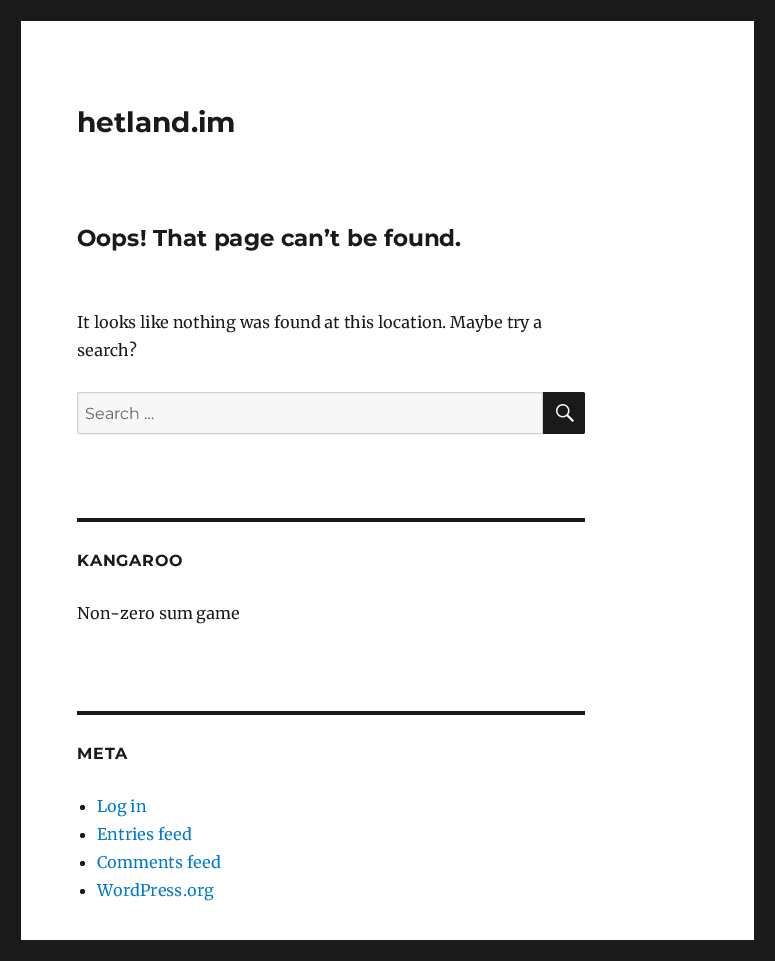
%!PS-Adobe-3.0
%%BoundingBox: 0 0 775 961
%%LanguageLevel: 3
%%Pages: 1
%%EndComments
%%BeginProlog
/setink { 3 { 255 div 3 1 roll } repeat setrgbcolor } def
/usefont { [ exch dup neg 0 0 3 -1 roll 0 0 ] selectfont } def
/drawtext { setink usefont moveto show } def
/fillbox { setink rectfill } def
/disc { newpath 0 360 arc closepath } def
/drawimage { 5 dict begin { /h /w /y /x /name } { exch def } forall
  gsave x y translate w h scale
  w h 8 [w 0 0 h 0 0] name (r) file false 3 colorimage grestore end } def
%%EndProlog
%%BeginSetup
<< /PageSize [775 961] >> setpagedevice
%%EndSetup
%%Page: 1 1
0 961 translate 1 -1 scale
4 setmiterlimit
0 0 775 961 26 26 26 fillbox
21 21 733 919 255 255 255 fillbox
(hetland.im) 77 132 /Montserrat-Thin 28 26 26 26 drawtext
(Oops! That page can’t be found.) 77 246 /Montserrat-Thin 23 26 26 26 drawtext
(It looks like nothing was found at this location. Maybe try a) 77 328 /Merriweather-Regular 16 26 26 26 drawtext
(search?) 77 356 /Merriweather-Regular 16 26 26 26 drawtext
247 247 247 setink
79 392.5 moveto 542.5 392.5 lineto 542.5 433.5 lineto 79 433.5 lineto 78 433.5 77.5 433 77.5 432 curveto 77.5 394 lineto 77.5 393 78 392.5 79 392.5 curveto closepath gsave fill grestore
209 209 209 setink
stroke
(Search …) 85 419 /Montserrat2-Thin 16 104 104 104 drawtext
26 26 26 setink
543 392 moveto 583 392 lineto 584 392 585 393 585 394 curveto 585 432 lineto 585 433 584 434 583 434 curveto 543 434 lineto closepath fill
(assets/img1.rgb) 556 404 18 18 drawimage
77 518 508 4 26 26 26 fillbox
/Montserrat-Thin 16 usefont
77 566 moveto 0.75 0 (KANGAROO) ashow
(Non-zero sum game) 77 619 /Merriweather-Regular 16 26 26 26 drawtext
77 711 508 4 26 26 26 fillbox
/Montserrat-Thin 16 usefont
77 759 moveto 0.75 0 (META) ashow
82.5 807.5 2.5 disc fill
(Log in) 97 812 /Merriweather-Regular 16 0 122 204 drawtext
26 26 26 setink
82.5 835.5 2.5 disc fill
(Entries feed) 97 840 /Merriweather-Regular 16 0 122 204 drawtext
26 26 26 setink
82.5 863.5 2.5 disc fill
(Comments feed) 97 868 /Merriweather-Regular 16 0 122 204 drawtext
26 26 26 setink
82.5 891.5 2.5 disc fill
(WordPress.org) 97 896 /Merriweather-Regular 16 0 122 204 drawtext
showpage
%%EOF
